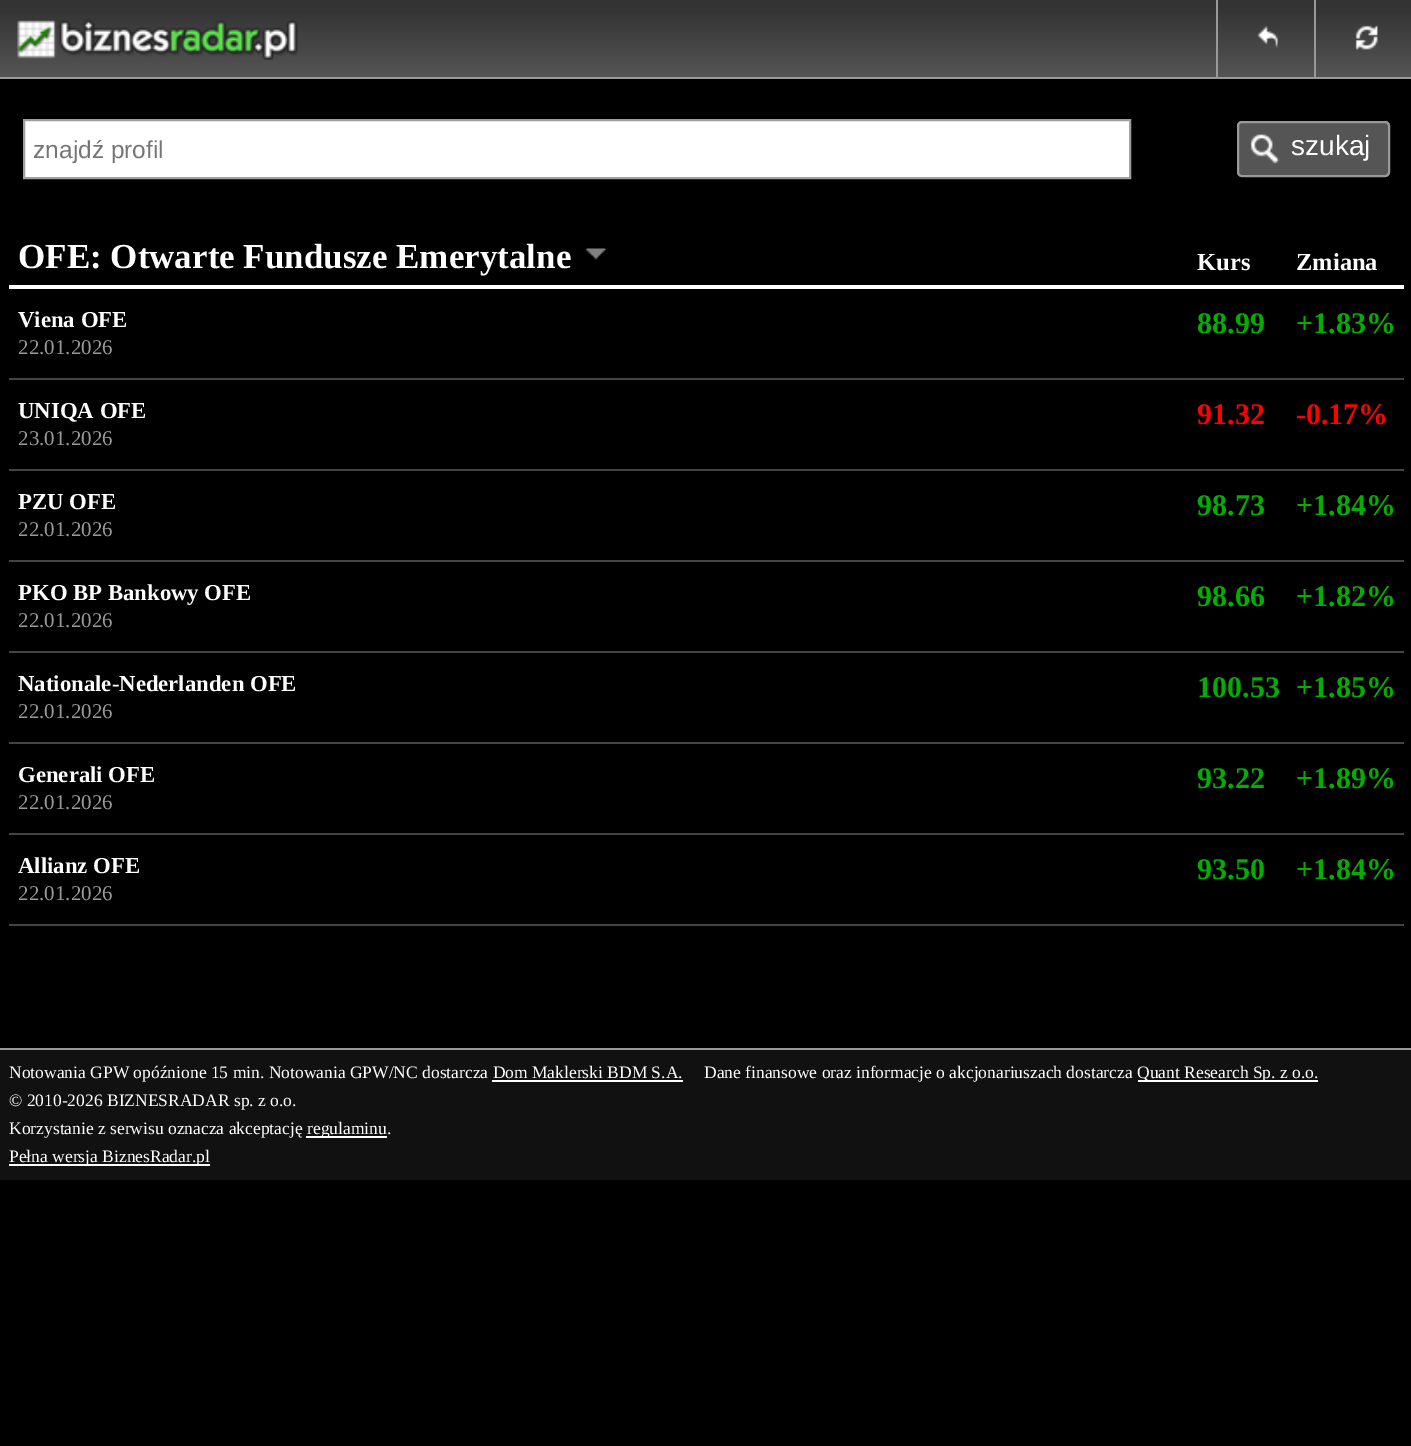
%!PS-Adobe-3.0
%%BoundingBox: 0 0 1411 1446
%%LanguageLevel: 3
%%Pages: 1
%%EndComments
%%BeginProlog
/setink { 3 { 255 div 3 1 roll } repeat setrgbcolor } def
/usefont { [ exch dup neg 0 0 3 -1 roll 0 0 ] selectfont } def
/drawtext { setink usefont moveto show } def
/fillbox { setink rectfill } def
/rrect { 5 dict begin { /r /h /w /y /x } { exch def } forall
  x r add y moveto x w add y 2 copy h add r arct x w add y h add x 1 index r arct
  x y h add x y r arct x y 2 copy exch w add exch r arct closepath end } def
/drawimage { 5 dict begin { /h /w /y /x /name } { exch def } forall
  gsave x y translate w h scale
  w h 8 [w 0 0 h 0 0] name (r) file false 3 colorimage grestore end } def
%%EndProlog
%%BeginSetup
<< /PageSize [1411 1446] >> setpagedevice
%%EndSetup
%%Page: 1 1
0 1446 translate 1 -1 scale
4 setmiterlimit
0 0 1411 1446 0 0 0 fillbox
gsave 0 0 moveto 1411 0 lineto 1411 77 lineto 0 77 lineto closepath clip newpath
<< /ShadingType 2 /ColorSpace /DeviceRGB /Coords [0 77 0 0] /Extend [true true] /Function << /FunctionType 3 /Domain [0 1] /Functions [<< /FunctionType 2 /Domain [0 1] /C0 [0.333 0.333 0.333] /C1 [0.2 0.2 0.2] /N 1 >> << /FunctionType 2 /Domain [0 1] /C0 [0.2 0.2 0.2] /C1 [0.2 0.2 0.2] /N 1 >>] /Bounds [0.9] /Encode [0 1 0 1] >> >> shfill grestore
0 77 1411 2 153 153 153 fillbox
(assets/img1.rgb) 17 19 281 41 drawimage
1216 0 2 77 153 153 153 fillbox
(assets/img2.rgb) 1257 26 21 22 drawimage
1314 0 2 77 153 153 153 fillbox
(assets/img3.rgb) 1355 25 23 25 drawimage
255 255 255 setink
24 120 moveto 1130 120 lineto 1130 178 lineto 24 178 lineto closepath gsave fill grestore
160 160 160 setink
2 setlinewidth
stroke
(znajdź profil) 33 158 /LiberationSans-Regular 24.5 117 117 117 drawtext
85 85 85 setink
1237 121 153 56 5 rrect fill
(assets/img4.rgb) 1250 134 30 30 drawimage
153 153 153 setink
1238 122 151 54 4 rrect stroke
(szukaj) 1291 155 /LiberationSans-Regular 28 255 255 255 drawtext
9 285 1395 4 255 255 255 fillbox
(OFE: Otwarte Fundusze Emerytalne) 18 268 /LiberationSerif-Bold 35 255 255 255 drawtext
(assets/img5.rgb) 585 248 21 12 drawimage
(Kurs) 1197 270 /LiberationSerif-Bold 24.5 255 255 255 drawtext
(Zmiana) 1296 270 /LiberationSerif-Bold 24.5 255 255 255 drawtext
9 378 1395 2 68 68 68 fillbox
(Viena OFE) 18 327 /LiberationSerif-Bold 22.75 255 255 255 drawtext
(22.01.2026) 18 354 /LiberationSerif-Regular 21 153 153 153 drawtext
(88.99) 1197 333 /LiberationSerif-Bold 30 3 173 1 drawtext
(+1.83%) 1296 333 /LiberationSerif-Bold 30 3 173 1 drawtext
9 469 1395 2 68 68 68 fillbox
(UNIQA OFE) 18 418 /LiberationSerif-Bold 22.75 255 255 255 drawtext
(23.01.2026) 18 445 /LiberationSerif-Regular 21 153 153 153 drawtext
(91.32) 1197 424 /LiberationSerif-Bold 30 255 0 0 drawtext
(-0.17%) 1296 424 /LiberationSerif-Bold 30 255 0 0 drawtext
9 560 1395 2 68 68 68 fillbox
(PZU OFE) 18 509 /LiberationSerif-Bold 22.75 255 255 255 drawtext
(22.01.2026) 18 536 /LiberationSerif-Regular 21 153 153 153 drawtext
(98.73) 1197 515 /LiberationSerif-Bold 30 3 173 1 drawtext
(+1.84%) 1296 515 /LiberationSerif-Bold 30 3 173 1 drawtext
9 651 1395 2 68 68 68 fillbox
(PKO BP Bankowy OFE) 18 600 /LiberationSerif-Bold 22.75 255 255 255 drawtext
(22.01.2026) 18 627 /LiberationSerif-Regular 21 153 153 153 drawtext
(98.66) 1197 606 /LiberationSerif-Bold 30 3 173 1 drawtext
(+1.82%) 1296 606 /LiberationSerif-Bold 30 3 173 1 drawtext
9 742 1395 2 68 68 68 fillbox
(Nationale-Nederlanden OFE) 18 691 /LiberationSerif-Bold 22.75 255 255 255 drawtext
(22.01.2026) 18 718 /LiberationSerif-Regular 21 153 153 153 drawtext
(100.53) 1197 697 /LiberationSerif-Bold 30 3 173 1 drawtext
(+1.85%) 1296 697 /LiberationSerif-Bold 30 3 173 1 drawtext
9 833 1395 2 68 68 68 fillbox
(Generali OFE) 18 782 /LiberationSerif-Bold 22.75 255 255 255 drawtext
(22.01.2026) 18 809 /LiberationSerif-Regular 21 153 153 153 drawtext
(93.22) 1197 788 /LiberationSerif-Bold 30 3 173 1 drawtext
(+1.89%) 1296 788 /LiberationSerif-Bold 30 3 173 1 drawtext
9 924 1395 2 68 68 68 fillbox
(Allianz OFE) 18 873 /LiberationSerif-Bold 22.75 255 255 255 drawtext
(22.01.2026) 18 900 /LiberationSerif-Regular 21 153 153 153 drawtext
(93.50) 1197 879 /LiberationSerif-Bold 30 3 173 1 drawtext
(+1.84%) 1296 879 /LiberationSerif-Bold 30 3 173 1 drawtext
0 1050 1411 130 17 17 17 fillbox
0 1048 1411 2 153 153 153 fillbox
(Notowania GPW opóźnione 15 min. Notowania GPW/NC dostarcza Dom Maklerski BDM S.A.) 9 1078 /LiberationSerif-Regular 17.5 255 255 255 drawtext
(Dane finansowe oraz informacje o akcjonariuszach dostarcza) 704 1078 /LiberationSerif-Regular 17.5 255 255 255 drawtext
1138 1080 180 2 255 255 255 fillbox
(Quant Research Sp. z o.o.) 1137 1078 /LiberationSerif-Regular 17.5 255 255 255 drawtext
492 1080 191 2 255 255 255 fillbox
(© 2010-2026 BIZNESRADAR sp. z o.o.) 9 1106 /LiberationSerif-Regular 17.5 255 255 255 drawtext
(Korzystanie z serwisu oznacza akceptację) 9 1134 /LiberationSerif-Regular 17.5 255 255 255 drawtext
306 1136 81 2 255 255 255 fillbox
(regulaminu.) 307 1134 /LiberationSerif-Regular 17.5 255 255 255 drawtext
9 1164 201 2 255 255 255 fillbox
(Pełna wersja BiznesRadar.pl) 9 1162 /LiberationSerif-Regular 17.5 255 255 255 drawtext
showpage
%%EOF
